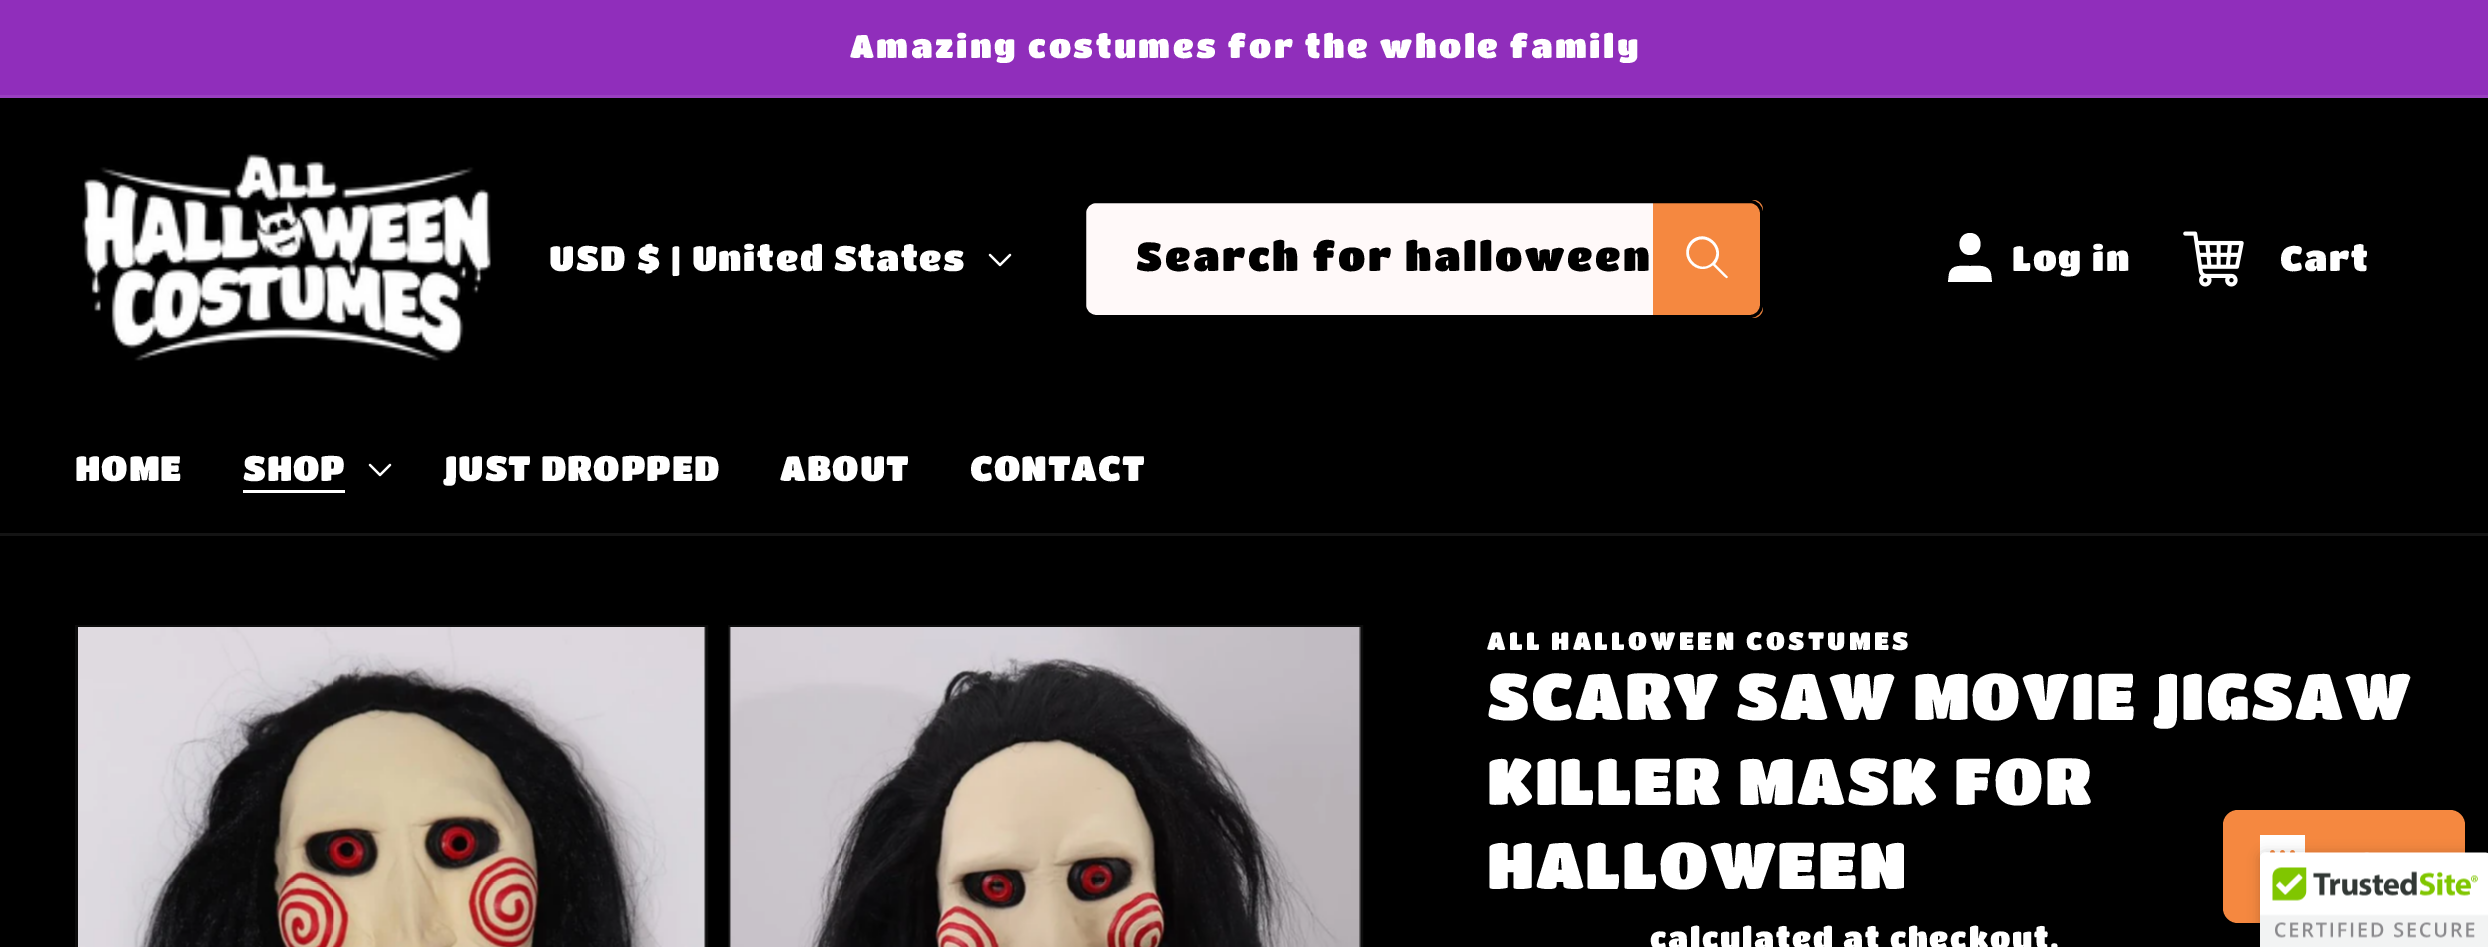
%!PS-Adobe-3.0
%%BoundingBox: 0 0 2488 947
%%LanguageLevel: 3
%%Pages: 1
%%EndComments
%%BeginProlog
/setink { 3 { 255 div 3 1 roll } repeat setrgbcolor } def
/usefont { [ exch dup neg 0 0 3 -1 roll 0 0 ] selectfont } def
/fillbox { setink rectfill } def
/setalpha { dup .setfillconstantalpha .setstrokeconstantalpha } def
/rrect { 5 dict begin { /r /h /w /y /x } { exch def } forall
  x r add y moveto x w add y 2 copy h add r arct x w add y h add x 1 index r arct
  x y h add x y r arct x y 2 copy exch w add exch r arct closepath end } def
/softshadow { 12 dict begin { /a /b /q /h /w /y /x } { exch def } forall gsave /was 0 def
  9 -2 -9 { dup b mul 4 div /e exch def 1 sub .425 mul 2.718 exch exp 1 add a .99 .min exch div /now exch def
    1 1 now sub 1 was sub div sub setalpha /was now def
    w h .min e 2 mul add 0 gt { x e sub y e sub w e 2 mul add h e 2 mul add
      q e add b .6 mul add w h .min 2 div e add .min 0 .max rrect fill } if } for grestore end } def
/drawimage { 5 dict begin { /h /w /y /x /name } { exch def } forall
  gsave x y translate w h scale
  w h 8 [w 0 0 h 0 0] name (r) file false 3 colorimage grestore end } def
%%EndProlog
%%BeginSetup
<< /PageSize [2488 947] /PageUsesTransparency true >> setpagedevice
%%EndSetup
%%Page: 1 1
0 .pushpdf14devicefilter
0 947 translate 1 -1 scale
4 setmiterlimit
0 0 2488 947 0 0 0 fillbox
0 0 2488 95 144 46 187 fillbox
0 95 2488 3 153 63 192 fillbox
/TitanOne-Regular 32.5 usefont
255 255 255 setink
850 58 moveto 2.5 0 (Amazing costumes for the whole family) ashow
0 533 2488 3 20 20 20 fillbox
(assets/img1.rgb) 82 154 409 207 drawimage
/TitanOne-Regular 35 usefont
255 255 255 setink
549 271 moveto 1.5 0 (USD $ | United States) ashow
(assets/img2.rgb) 988 253 24 14 drawimage
255 249 249 setink
1085 203 675 112 10 rrect fill
245 136 64 setink
1653 200 moveto 1753 200 lineto 1758.5 200 1763 204.5 1763 210 curveto 1763 308 lineto 1763 313.5 1758.5 318 1753 318 curveto 1653 318 lineto closepath fill
255 255 255 setink
1712 263 moveto 1700 275 1680 256 1693 243 curveto 1706 231 1725 250 1712 263 curveto closepath 1713 265 moveto 1697 278 1677 256 1691 241 curveto 1706 227 1728 248 1715 264 curveto 1728 277 lineto 1727 278 lineto 1726 279 1715 267 1713 265 curveto closepath eofill
0 0 0 setink
3 setlinewidth
1084.5 201.5 677 115 11.5 rrect stroke
/TitanOne-Regular 40 usefont
1136 271 moveto 2.5 0 (Search for halloween) ashow
255 255 255 setink
1992 282 moveto 1991 274 lineto 1989 264 1978 266 1970 266 curveto 1962 266 1951 264 1949 274 curveto 1948 282 lineto 1970 255 moveto 1984 255 1984 233 1970 233 curveto 1956 233 1956 255 1970 255 curveto closepath fill
/TitanOne-Regular 35 usefont
2012 271 moveto 1.5 0 (Log in) ashow
(assets/img3.rgb) 2183 231 61 56 drawimage
2280 271 moveto 1.5 0 (Cart) ashow
75 481 moveto 0.9 0 (HOME) ashow
243 481 moveto 0.9 0 (SHOP) ashow
243 490 102 3 255 255 255 fillbox
(assets/img2.rgb) 368 463 24 14 drawimage
443 481 moveto 0.9 0 (JUST DROPPED) ashow
780 481 moveto 0.9 0 (ABOUT) ashow
970 481 moveto 0.9 0 (CONTACT) ashow
13 13 13 setink
76.5 626.5 630 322 rectstroke
(assets/img4.rgb) 78 627 628 320 drawimage
729.5 626.5 632 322 rectstroke
(assets/img5.rgb) 729 627 632 320 drawimage
/TitanOne-Regular 25 usefont
255 255 255 setink
1487 650 moveto 3.25 0 (ALL HALLOWEEN COSTUMES) ashow
/TitanOne-Regular 65 usefont
1487 720 moveto 1.5 0 (SCARY SAW MOVIE JIGSAW) ashow
1487 805 moveto 1.5 0 (KILLER MASK FOR) ashow
1487 889 moveto 1.5 0 (HALLOWEEN) ashow
/TitanOne-Regular 30 usefont
1650 949 moveto 1.75 0 (calculated at checkout.) ashow
245 136 64 setink
2223 810 242 113 15 rrect fill
(assets/img6.rgb) 2260 835 45 23 drawimage
0 0 0 setink
2260 853 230 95 5 6 0.2 softshadow
255 255 255 setink
2265 853 moveto 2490 853 lineto 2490 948 lineto 2260 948 lineto 2260 858 lineto 2260 855 2262 853 2265 853 curveto closepath fill
(assets/img7.rgb) 2260 852 228 95 drawimage
.poppdf14devicefilter showpage
%%EOF
